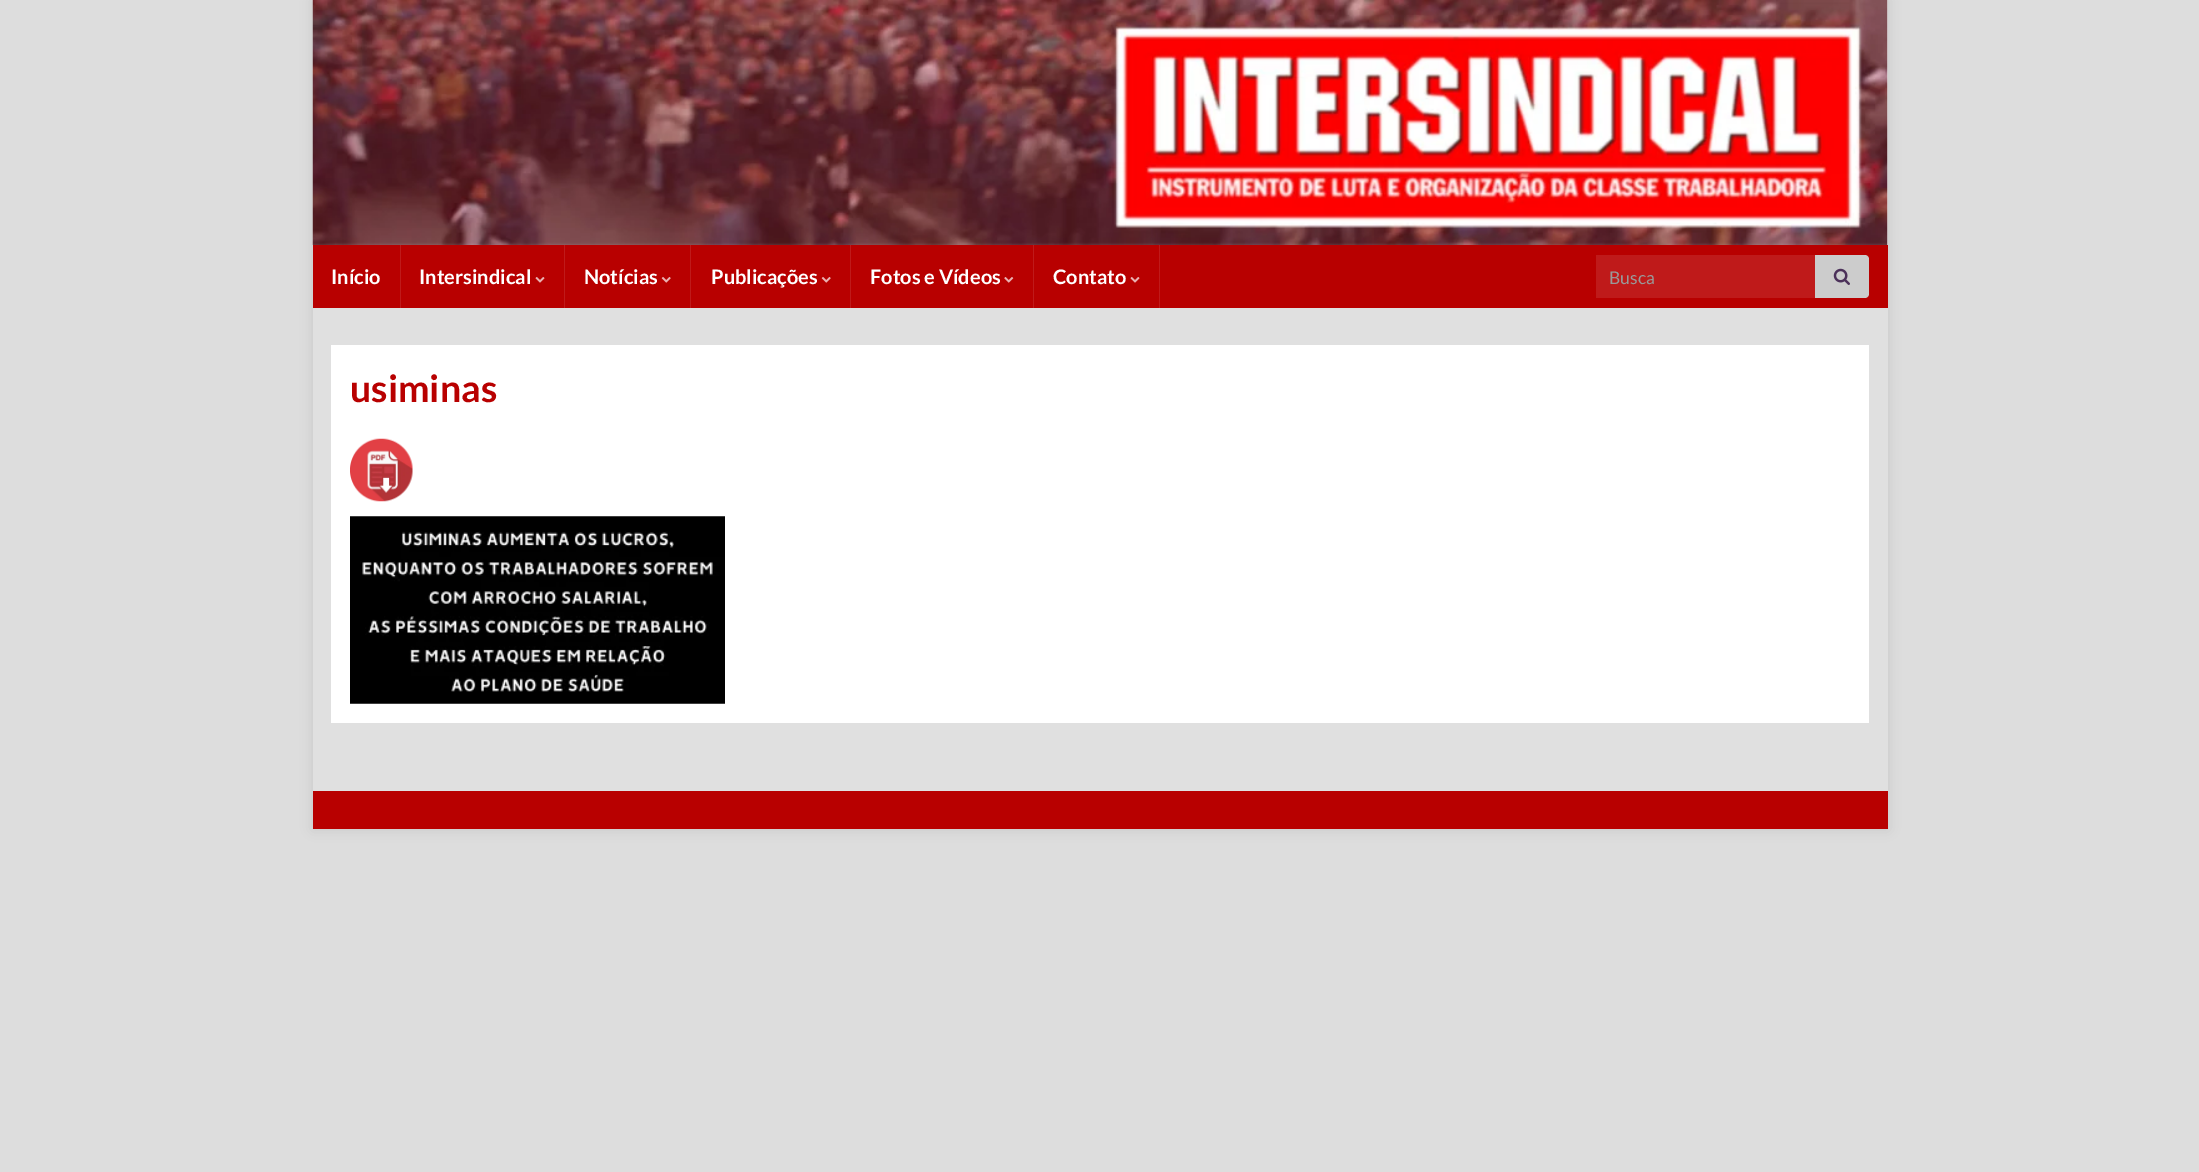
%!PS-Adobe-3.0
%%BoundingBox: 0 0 2199 1172
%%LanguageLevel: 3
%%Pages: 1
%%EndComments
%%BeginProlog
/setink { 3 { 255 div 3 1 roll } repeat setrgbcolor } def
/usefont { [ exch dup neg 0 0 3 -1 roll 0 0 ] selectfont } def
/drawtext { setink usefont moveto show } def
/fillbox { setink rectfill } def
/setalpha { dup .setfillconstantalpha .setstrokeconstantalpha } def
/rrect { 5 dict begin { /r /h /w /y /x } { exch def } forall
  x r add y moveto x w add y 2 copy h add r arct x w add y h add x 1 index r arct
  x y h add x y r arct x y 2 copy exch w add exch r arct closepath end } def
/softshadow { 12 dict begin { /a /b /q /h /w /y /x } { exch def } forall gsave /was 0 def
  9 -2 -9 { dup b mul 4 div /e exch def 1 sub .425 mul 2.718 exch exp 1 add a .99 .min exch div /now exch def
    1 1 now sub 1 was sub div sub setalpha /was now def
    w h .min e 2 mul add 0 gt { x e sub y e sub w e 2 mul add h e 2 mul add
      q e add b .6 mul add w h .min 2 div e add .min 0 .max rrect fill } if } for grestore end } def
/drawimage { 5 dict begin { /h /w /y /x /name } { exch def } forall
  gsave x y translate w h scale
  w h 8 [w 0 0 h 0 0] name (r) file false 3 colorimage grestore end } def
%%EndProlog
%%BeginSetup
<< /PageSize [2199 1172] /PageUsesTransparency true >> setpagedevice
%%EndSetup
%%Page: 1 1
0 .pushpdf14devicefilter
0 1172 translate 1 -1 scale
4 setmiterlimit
0 0 2199 1172 221 221 221 fillbox
0 0 0 setink
313 0 1575 829 0 6 0.1 softshadow
313 0 1575 245 224 224 224 fillbox
(assets/img1.rgb) 312 0 1576 245 drawimage
313 245 1575 63 184 0 0 fillbox
400 245 1 63 191 26 26 fillbox
(Início) 331 284 /Lato-Bold 20 255 255 255 drawtext
564 245 1 63 191 26 26 fillbox
(Intersindical) 419 284 /Lato-Bold 20 255 255 255 drawtext
(assets/img2.rgb) 535 277 10 6 drawimage
690 245 1 63 191 26 26 fillbox
(Notícias) 584 284 /Lato-Bold 20 255 255 255 drawtext
(assets/img3.rgb) 661 277 10 6 drawimage
850 245 1 63 191 26 26 fillbox
(Publicações) 711 284 /Lato-Bold 20 255 255 255 drawtext
(assets/img3.rgb) 821 277 10 6 drawimage
1033 245 1 63 191 26 26 fillbox
(Fotos e Vídeos) 870 284 /Lato-Bold 20 255 255 255 drawtext
(assets/img4.rgb) 1004 277 10 6 drawimage
1159 245 1 63 191 26 26 fillbox
(Contato) 1053 284 /Lato-Bold 20 255 255 255 drawtext
(assets/img2.rgb) 1130 277 10 6 drawimage
1596 255 219 43 191 26 26 fillbox
(Busca) 1609 284 /Lato-Regular 17.5 153 153 153 drawtext
204 204 204 setink
1815 255 moveto 1865 255 lineto 1867 255 1869 257 1869 259 curveto 1869 294 lineto 1869 296 1867 298 1865 298 curveto 1815 298 lineto closepath fill
(assets/img5.rgb) 1833 268 17 17 drawimage
313 308 1575 483 224 224 224 fillbox
331 345 1538 378 255 255 255 fillbox
(usiminas) 350 402 /Lato-Bold 37.5 184 0 0 drawtext
(assets/img6.rgb) 350 438 63 64 drawimage
(assets/img7.rgb) 350 516 375 188 drawimage
313 791 1575 38 184 0 0 fillbox
.poppdf14devicefilter showpage
%%EOF
